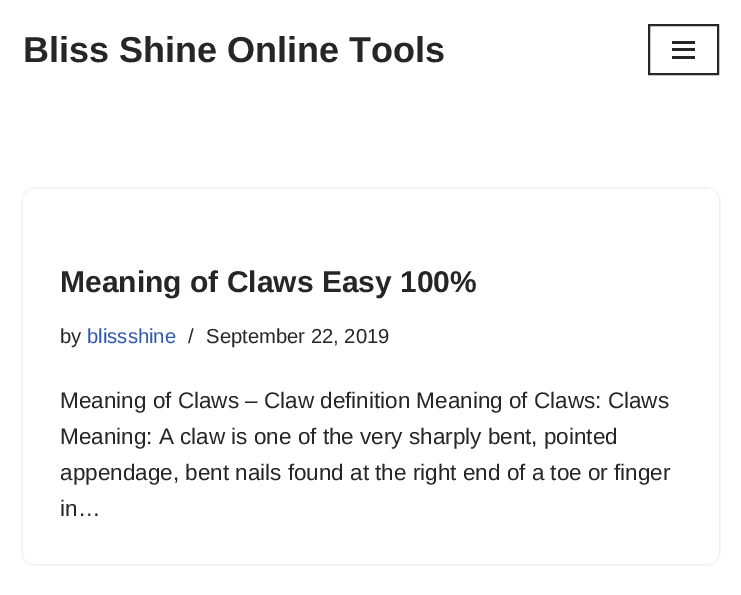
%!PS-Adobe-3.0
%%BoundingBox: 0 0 741 595
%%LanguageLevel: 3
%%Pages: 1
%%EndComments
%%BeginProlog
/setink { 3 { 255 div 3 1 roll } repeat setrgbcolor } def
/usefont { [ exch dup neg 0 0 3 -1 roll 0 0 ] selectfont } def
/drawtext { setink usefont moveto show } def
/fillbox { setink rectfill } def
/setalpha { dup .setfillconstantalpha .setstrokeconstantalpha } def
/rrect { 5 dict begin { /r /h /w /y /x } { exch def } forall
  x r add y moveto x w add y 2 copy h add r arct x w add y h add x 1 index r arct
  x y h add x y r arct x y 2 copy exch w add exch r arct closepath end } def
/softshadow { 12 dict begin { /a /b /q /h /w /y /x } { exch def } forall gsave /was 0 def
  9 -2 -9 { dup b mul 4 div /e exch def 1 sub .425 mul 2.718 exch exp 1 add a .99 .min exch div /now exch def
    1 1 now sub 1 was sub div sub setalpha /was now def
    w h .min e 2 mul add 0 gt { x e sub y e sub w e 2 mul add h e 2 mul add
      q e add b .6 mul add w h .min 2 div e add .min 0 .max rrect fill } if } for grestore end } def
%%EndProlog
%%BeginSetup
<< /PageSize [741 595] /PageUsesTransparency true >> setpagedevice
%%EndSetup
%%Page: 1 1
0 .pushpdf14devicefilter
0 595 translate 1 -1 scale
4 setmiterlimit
0 0 741 595 255 255 255 fillbox
(Bliss Shine Online Tools) 23 62 /LiberationSans-Bold 36 39 38 38 drawtext
2 setlinewidth
649 25 69 49 rectstroke
672 41 23 3 39 38 38 fillbox
672 48 23 3 39 38 38 fillbox
672 56 23 3 39 38 38 fillbox
0 0 0 setink
23 189 696 375 12 1.5 0.15 softshadow
255 255 255 setink
23 189 696 375 12 rrect fill
(Meaning of Claws Easy 100%) 60 292 /LiberationSans-Bold 30 39 38 38 drawtext
(by) 60 343 /LiberationSans-Regular 20.25 39 38 38 drawtext
(blissshine) 87 343 /LiberationSans-Regular 20.25 47 90 174 drawtext
(/) 188 343 /LiberationSans-Regular 20.25 39 38 38 drawtext
(September 22, 2019) 206 343 /LiberationSans-Regular 20.25 39 38 38 drawtext
(Meaning of Claws – Claw definition Meaning of Claws: Claws) 60 408 /LiberationSans-Regular 22.5 39 38 38 drawtext
(Meaning: A claw is one of the very sharply bent, pointed) 60 444 /LiberationSans-Regular 22.5 39 38 38 drawtext
(appendage, bent nails found at the right end of a toe or finger) 60 480 /LiberationSans-Regular 22.5 39 38 38 drawtext
(in…) 60 516 /LiberationSans-Regular 22.5 39 38 38 drawtext
.poppdf14devicefilter showpage
%%EOF
